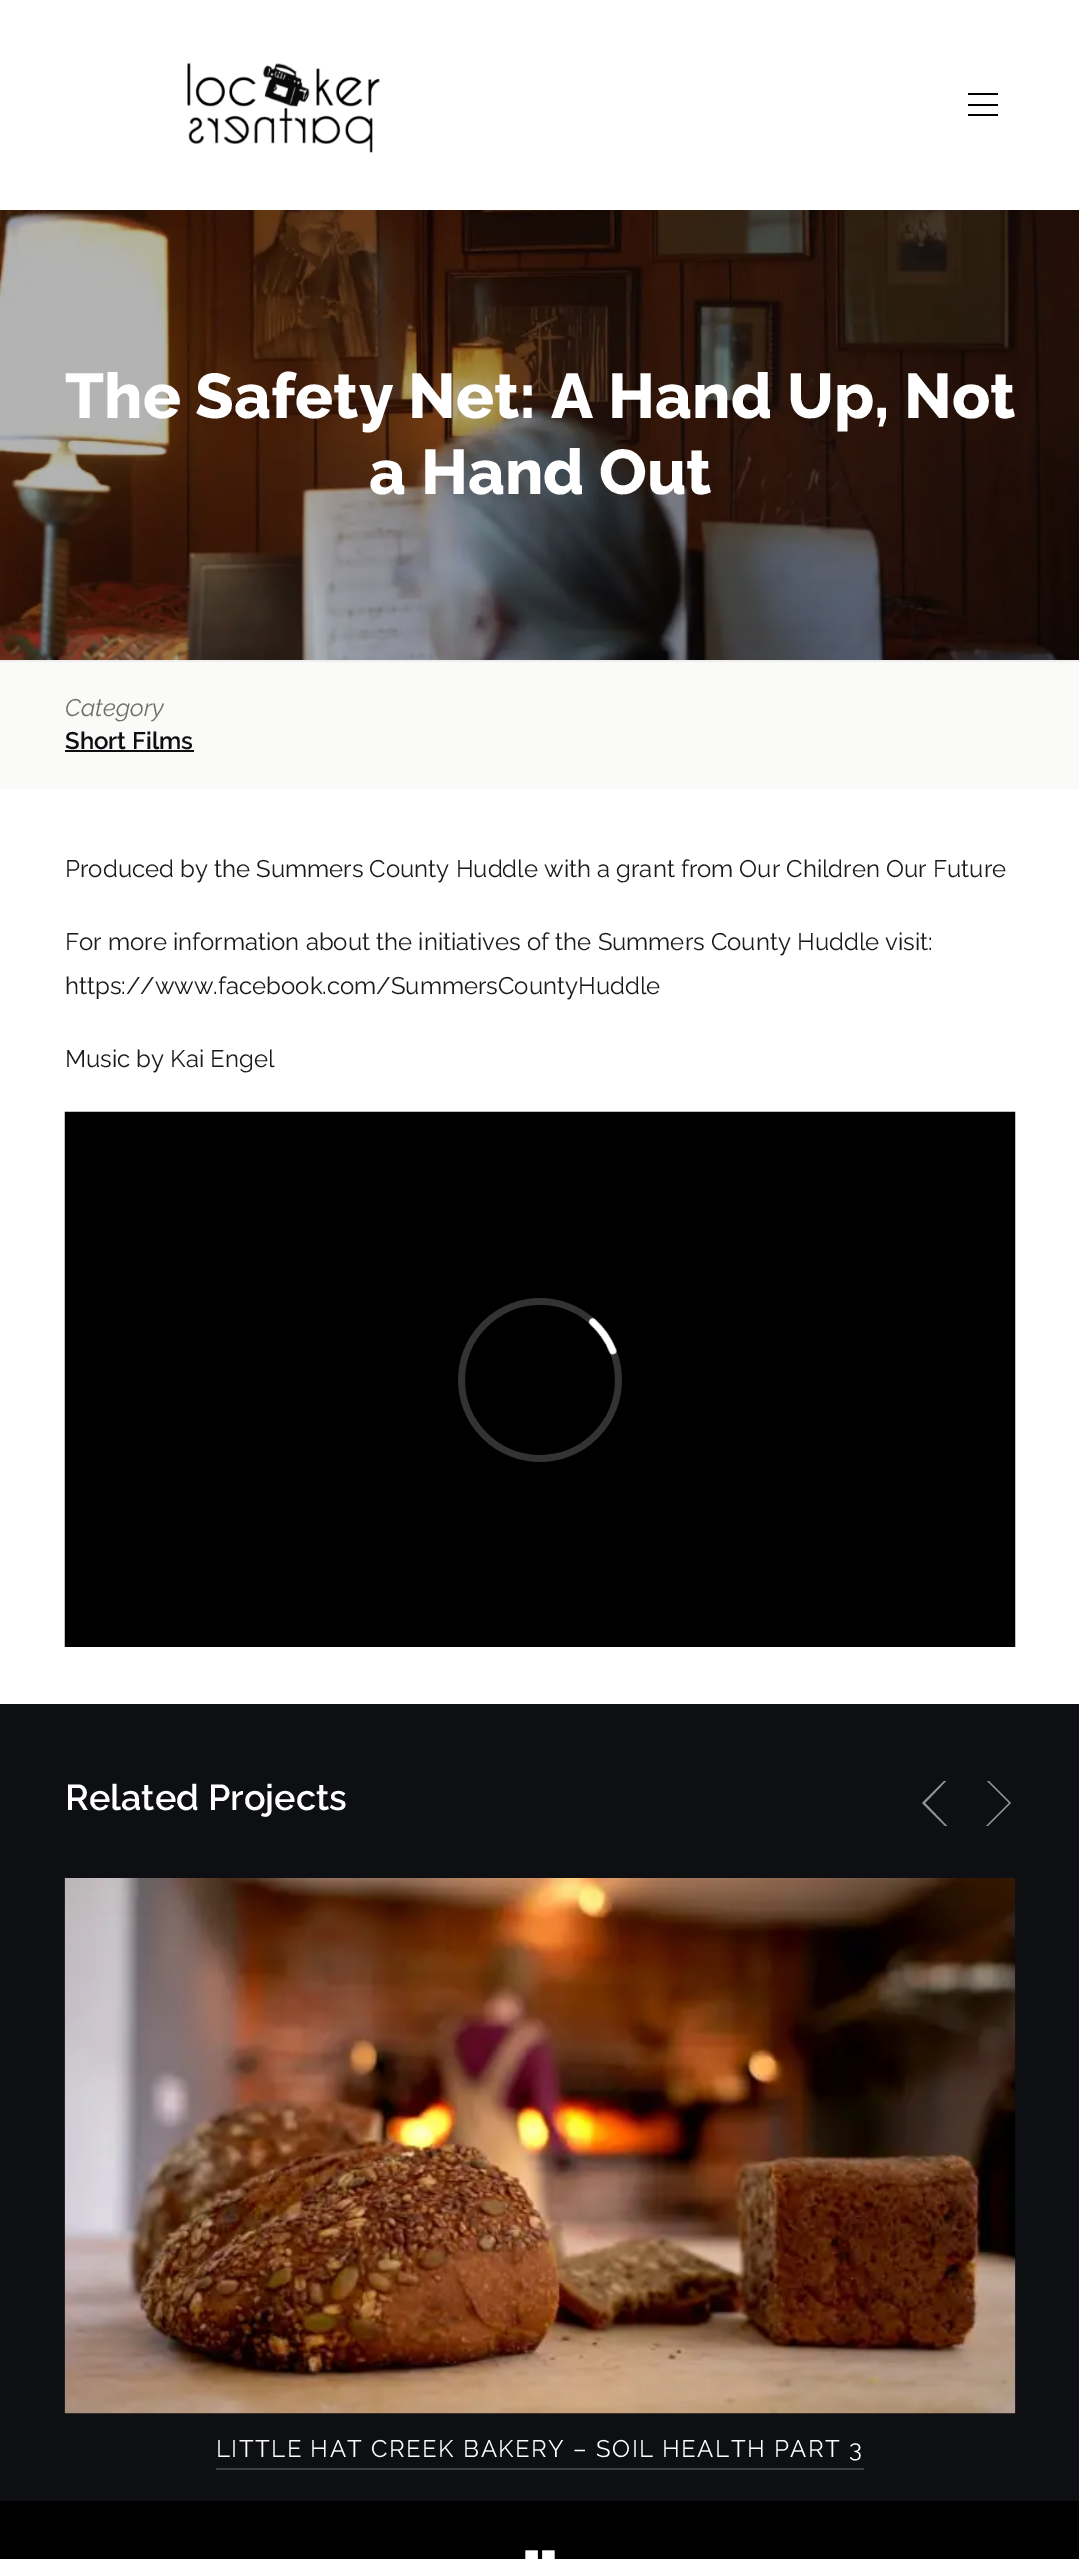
%!PS-Adobe-3.0
%%BoundingBox: 0 0 1079 2559
%%LanguageLevel: 3
%%Pages: 1
%%EndComments
%%BeginProlog
/setink { 3 { 255 div 3 1 roll } repeat setrgbcolor } def
/usefont { [ exch dup neg 0 0 3 -1 roll 0 0 ] selectfont } def
/drawtext { setink usefont moveto show } def
/fillbox { setink rectfill } def
/drawimage { 5 dict begin { /h /w /y /x /name } { exch def } forall
  gsave x y translate w h scale
  w h 8 [w 0 0 h 0 0] name (r) file false 3 colorimage grestore end } def
%%EndProlog
%%BeginSetup
<< /PageSize [1079 2559] >> setpagedevice
%%EndSetup
%%Page: 1 1
0 2559 translate 1 -1 scale
4 setmiterlimit
0 0 1079 2559 255 255 255 fillbox
(assets/img1.rgb) 187 62 193 91 drawimage
968 93 30 2 0 0 0 fillbox
968 104 30 2 0 0 0 fillbox
968 114 30 2 0 0 0 fillbox
(assets/img2.rgb) 0 210 1079 450 drawimage
(The Safety Net: A Hand Up, Not) 65 418 /Raleway-ExtraBold 63 255 255 255 drawtext
(a Hand Out) 369 494 /Raleway-ExtraBold 63 255 255 255 drawtext
0 662 1079 127 250 250 249 fillbox
0 660 1079 2 238 238 238 fillbox
(Category) 65 716 /Raleway-Italic 24 111 111 110 drawtext
(Short Films) 65 749 /Raleway-SemiBold 24 13 15 19 drawtext
65 750 129 2 13 15 19 fillbox
(Produced by the Summers County Huddle with a grant from Our Children Our Future) 65 877 /Raleway-Regular 24 27 27 28 drawtext
(For more information about the initiatives of the Summers County Huddle visit:) 65 950 /Raleway-Regular 24 27 27 28 drawtext
(https://www.facebook.com/SummersCountyHuddle) 65 994 /Raleway-Regular 24 27 27 28 drawtext
(Music by Kai Engel) 65 1067 /Raleway-Regular 24 27 27 28 drawtext
(assets/img3.rgb) 64 1111 952 536 drawimage
0 1704 1079 797 13 15 19 fillbox
(Related Projects) 65 1810 /Raleway-SemiBold 36 255 255 255 drawtext
gsave
918 1781 45 45 rectclip
148 149 151 setink
922 1803 moveto 945 1826 lineto 947 1826 lineto 925 1803 lineto 947 1780 lineto 945 1780 lineto closepath fill
grestore
gsave
971 1781 45 45 rectclip
148 149 151 setink
1011 1803 moveto 988 1780 lineto 986 1780 lineto 1009 1803 lineto 986 1826 lineto 988 1826 lineto closepath fill
grestore
(assets/img4.rgb) 64 1878 952 536 drawimage
/Raleway-Regular 24 usefont
216 2457 moveto 1.5 0 (LITTLE HAT CREEK BAKERY – SOIL HEALTH PART 3) ashow
216 2468 648 2 61 63 66 fillbox
0 2501 1079 58 0 0 0 fillbox
(assets/img5.rgb) 525 2550 30 9 drawimage
showpage
%%EOF
